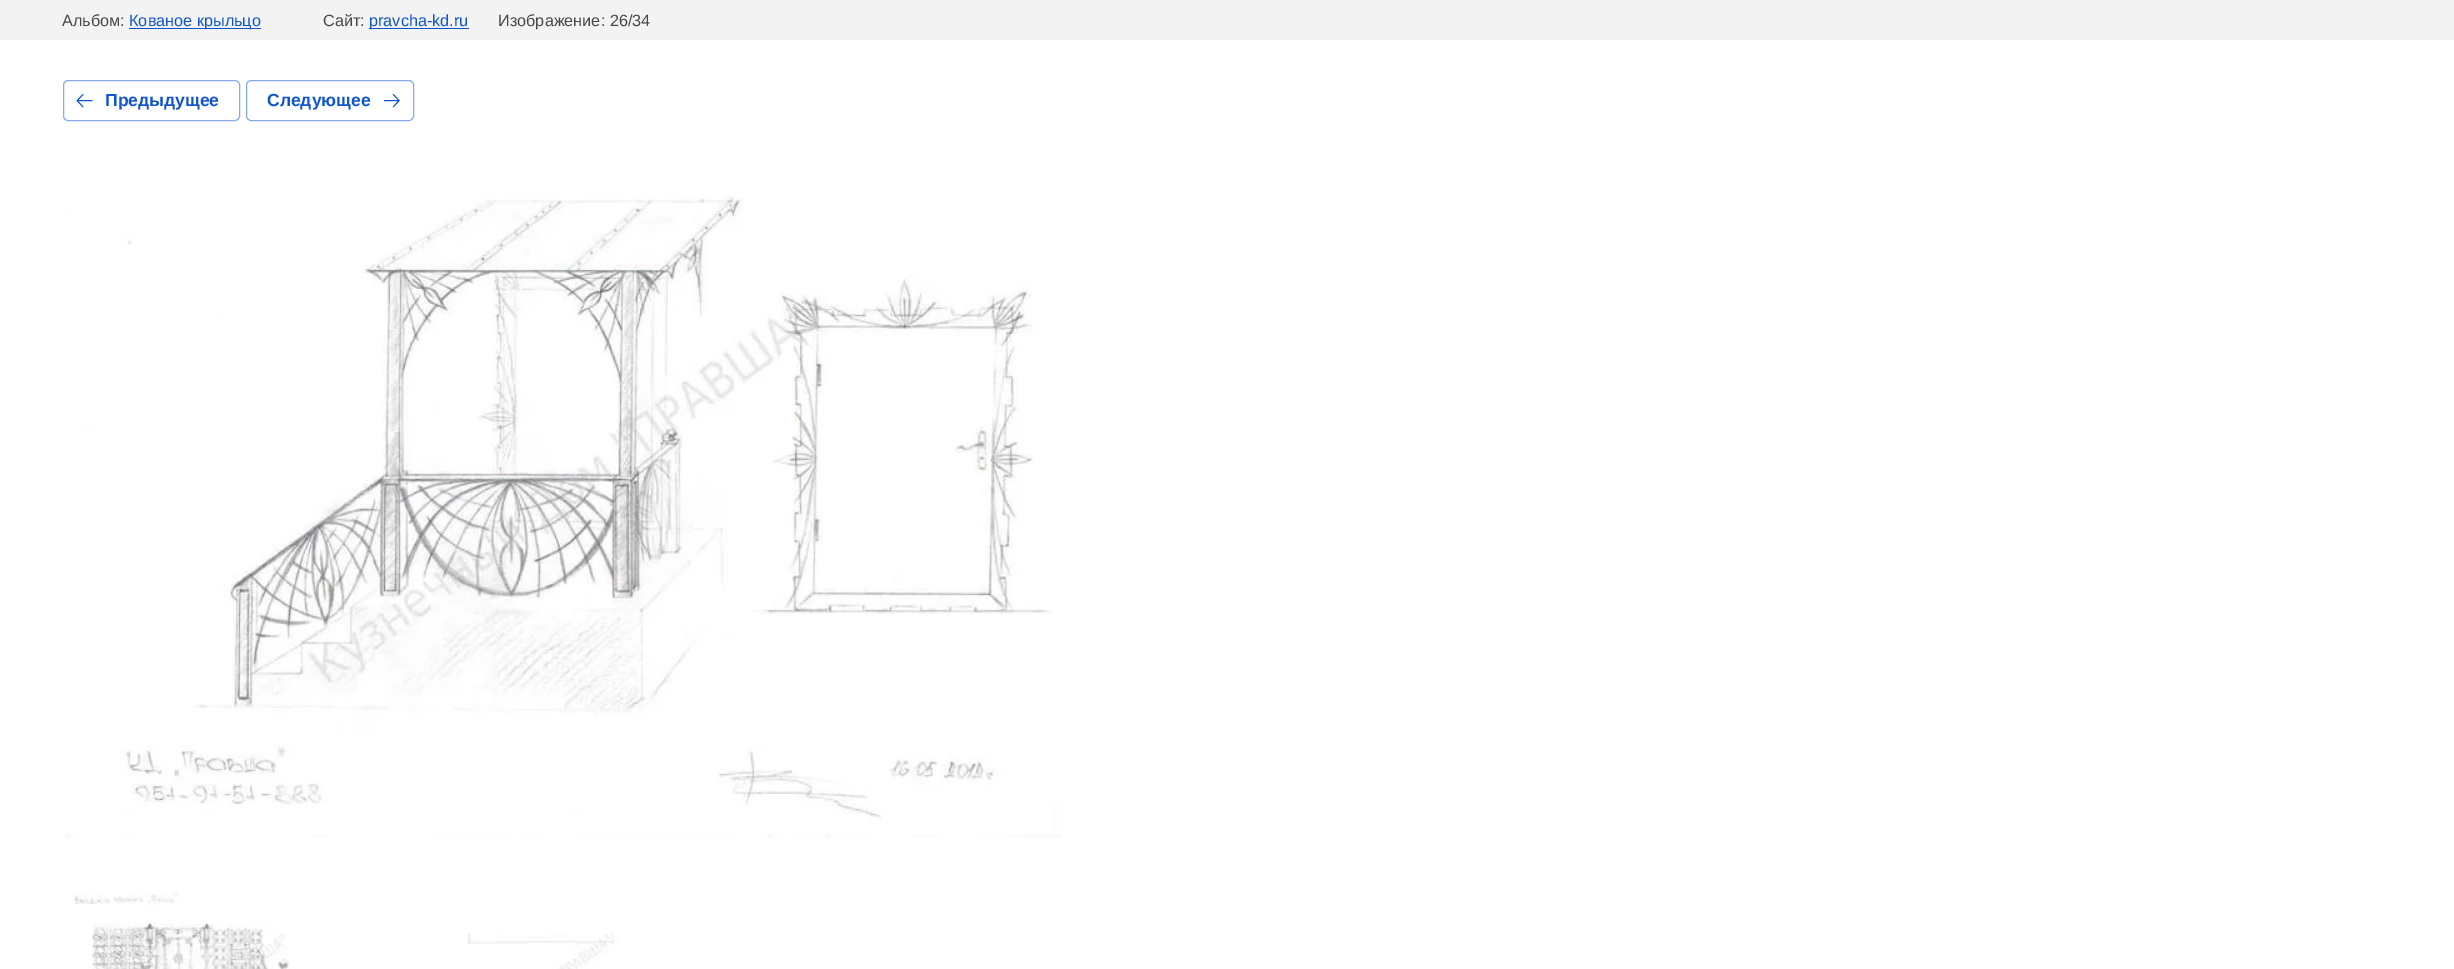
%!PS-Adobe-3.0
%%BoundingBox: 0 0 2454 969
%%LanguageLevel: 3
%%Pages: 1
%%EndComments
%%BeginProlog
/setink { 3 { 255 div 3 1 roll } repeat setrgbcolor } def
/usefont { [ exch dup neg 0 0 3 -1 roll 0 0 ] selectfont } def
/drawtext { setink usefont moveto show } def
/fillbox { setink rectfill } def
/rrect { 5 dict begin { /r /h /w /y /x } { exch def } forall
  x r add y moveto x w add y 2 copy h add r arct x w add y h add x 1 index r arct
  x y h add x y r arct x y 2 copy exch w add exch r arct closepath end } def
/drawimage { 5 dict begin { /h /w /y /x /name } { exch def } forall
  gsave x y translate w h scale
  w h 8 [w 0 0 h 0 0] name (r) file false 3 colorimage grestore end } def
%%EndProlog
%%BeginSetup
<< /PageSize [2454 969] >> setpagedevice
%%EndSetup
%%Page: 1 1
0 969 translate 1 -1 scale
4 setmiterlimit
0 0 2454 969 255 255 255 fillbox
0 0 2454 40 243 243 243 fillbox
(Альбом:) 62 26 /LiberationSans-Regular 16.25 72 72 72 drawtext
129 28 132 1 17 85 204 fillbox
(Кованое крыльцо) 129 26 /LiberationSans-Regular 16.25 17 85 204 drawtext
(Сайт:) 323 26 /LiberationSans-Regular 16.25 72 72 72 drawtext
369 28 100 1 17 85 204 fillbox
(pravcha-kd.ru) 369 26 /LiberationSans-Regular 16.25 17 85 204 drawtext
(Изображение: 26/34) 498 26 /LiberationSans-Regular 16.25 72 72 72 drawtext
136 170 230 setink
63.5 80.5 176 40 4.5 rrect stroke
(assets/img1.rgb) 76 94 17 14 drawimage
(Предыдущее) 105 106 /LiberationSans-Bold 17.5 17 85 204 drawtext
136 170 230 setink
246.5 80.5 167 40 4.5 rrect stroke
(Следующее) 267 106 /LiberationSans-Bold 17.5 17 85 204 drawtext
(assets/img2.rgb) 384 94 16 14 drawimage
(assets/img3.rgb) 64 195 998 644 drawimage
(assets/img4.rgb) 74 894 216 75 drawimage
(assets/img5.rgb) 467 933 151 36 drawimage
showpage
%%EOF
